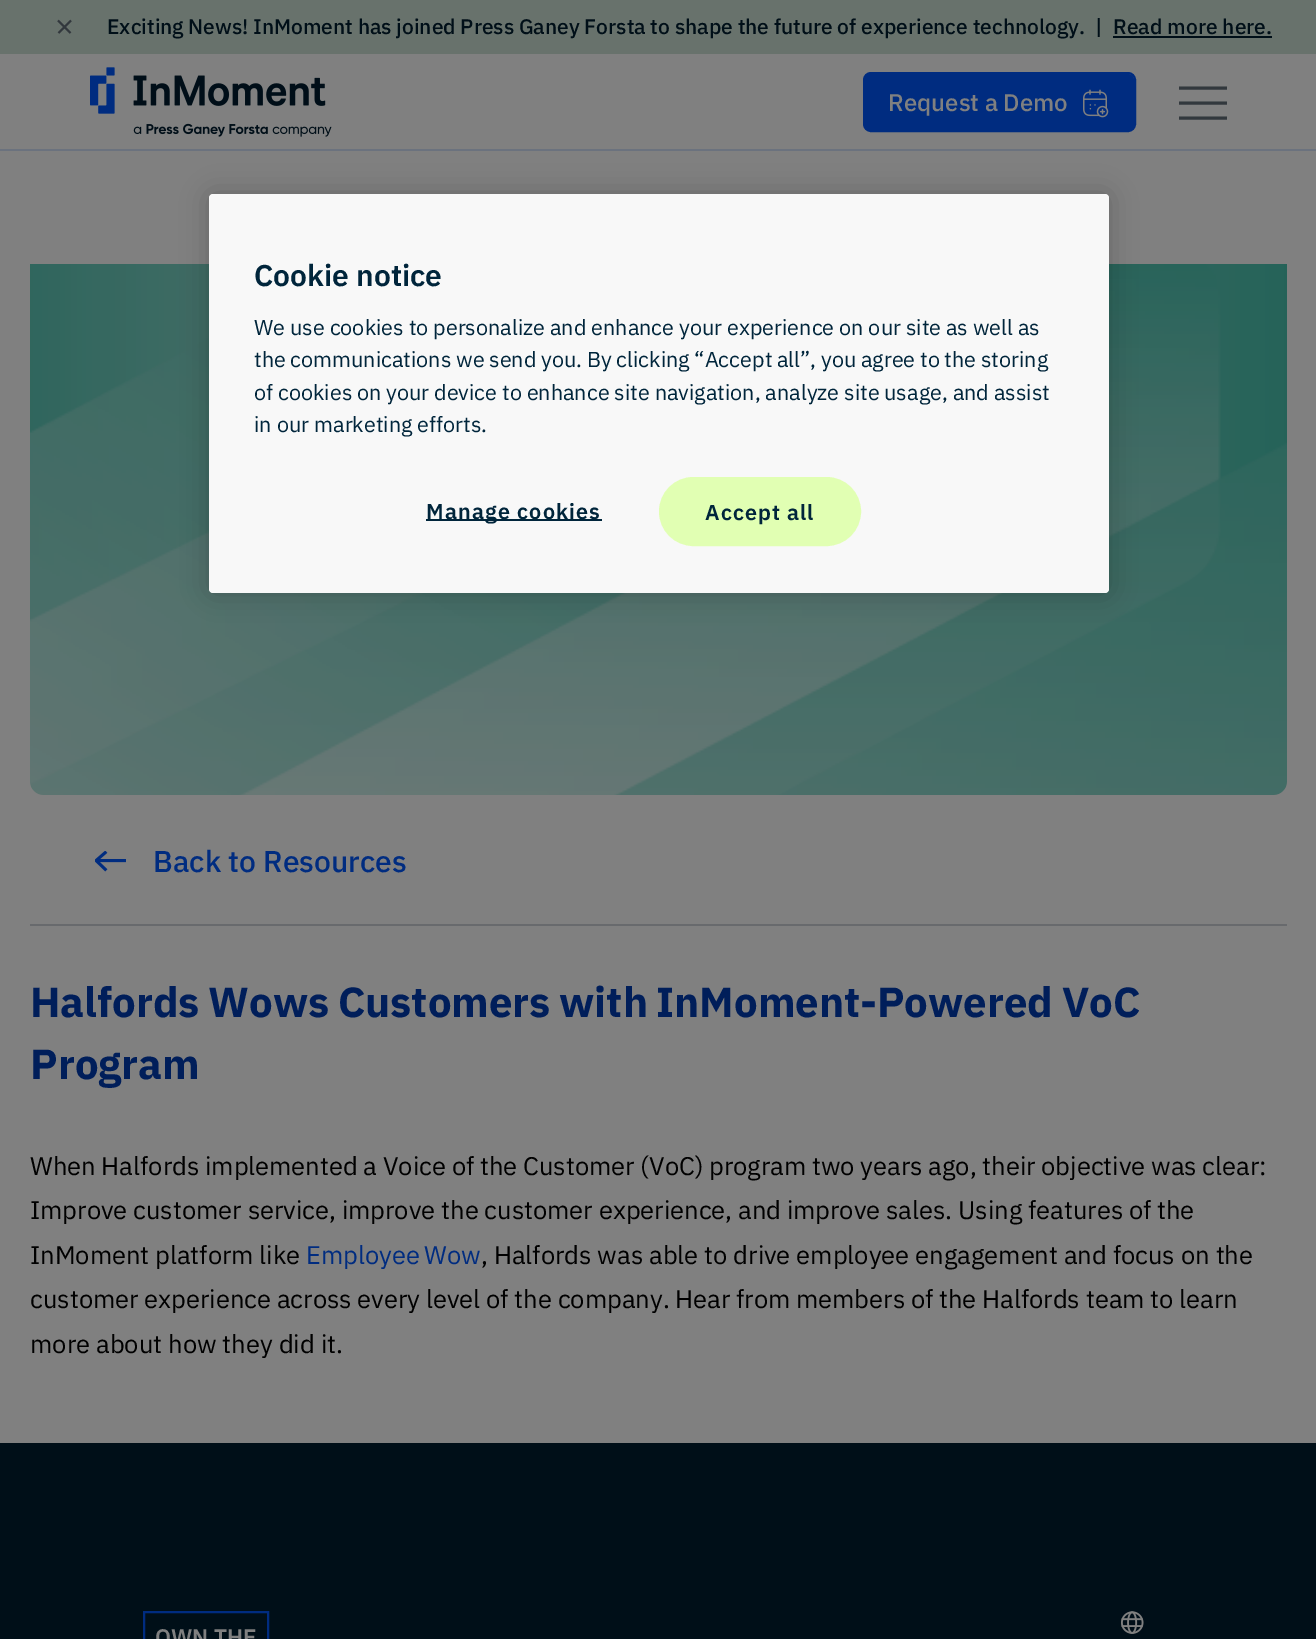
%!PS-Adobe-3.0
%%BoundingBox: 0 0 1316 1639
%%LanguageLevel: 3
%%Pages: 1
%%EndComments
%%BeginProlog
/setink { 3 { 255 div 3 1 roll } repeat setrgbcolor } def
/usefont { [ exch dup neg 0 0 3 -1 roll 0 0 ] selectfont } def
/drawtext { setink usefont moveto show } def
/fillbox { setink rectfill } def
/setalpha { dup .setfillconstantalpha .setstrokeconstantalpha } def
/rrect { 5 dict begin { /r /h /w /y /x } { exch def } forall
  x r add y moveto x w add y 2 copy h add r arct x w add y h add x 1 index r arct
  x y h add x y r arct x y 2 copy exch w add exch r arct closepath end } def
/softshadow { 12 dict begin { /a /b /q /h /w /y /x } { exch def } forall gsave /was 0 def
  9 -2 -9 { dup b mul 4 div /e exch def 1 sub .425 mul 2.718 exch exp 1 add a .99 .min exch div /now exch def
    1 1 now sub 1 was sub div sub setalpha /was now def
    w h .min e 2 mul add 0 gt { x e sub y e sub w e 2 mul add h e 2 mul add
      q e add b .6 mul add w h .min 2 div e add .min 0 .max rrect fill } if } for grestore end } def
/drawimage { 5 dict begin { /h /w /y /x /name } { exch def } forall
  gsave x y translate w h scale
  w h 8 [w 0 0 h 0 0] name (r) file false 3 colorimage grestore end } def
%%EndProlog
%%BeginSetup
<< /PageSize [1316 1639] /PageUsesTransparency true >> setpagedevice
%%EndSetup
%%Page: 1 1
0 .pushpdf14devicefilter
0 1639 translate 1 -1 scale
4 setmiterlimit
0 0 1316 1639 128 128 128 fillbox
0 0 1316 54 104 114 108 fillbox
50 56 61 setink
1.9 setlinewidth
58 20.5 moveto 70.5 33 lineto 58.5 33 moveto 71 20.5 lineto stroke
/IBMPlexSans-Medium 21 usefont
0 15 24 setink
107 34 moveto -0.25 0 32 (Exciting News! InMoment has joined Press Ganey Forsta to shape the future of experience technology.) widthshow
(|) 1095 34 /IBMPlexSans-Medium 21 0 15 24 drawtext
(Read more here.) 1113 34 /IBMPlexSans-Medium 21 0 15 24 drawtext
1113 36 159 2 0 15 24 fillbox
(assets/img1.rgb) 90 67 242 70 drawimage
0 44 128 setink
2 setlinewidth
864 73 271 58 7 rrect stroke
864 74 270 57 6 rrect fill
/IBMPlexSans-Medium 24 usefont
128 128 128 setink
888 111 moveto -0.25 0 32 (Request a Demo) widthshow
(assets/img2.rgb) 1083 89 26 29 drawimage
50 56 61 setink
3 setlinewidth
1179 88 moveto 1227 88 lineto 1179 103 moveto 1227 103 lineto 1179 118 moveto 1227 118 lineto stroke
0 149 1316 2 107 114 126 fillbox
(assets/img3.rgb) 30 264 1257 531 drawimage
0 0 0 setink
209 194 900 399 4 13.5 0.2 softshadow
248 248 248 setink
209 194 900 399 4 rrect fill
(Cookie notice) 254 286 /IBMPlexSans-SemiBold 30 0 37 59 drawtext
/IBMPlexSans-Regular 21.6 usefont
254 335 moveto -0.2 0 32 (We use cookies to personalize and enhance your experience on our site as well as) widthshow
254 367 moveto -0.4 0 32 (the communications we send you. By clicking “Accept all”, you agree to the storing) widthshow
254 400 moveto -0.25 0 32 (of cookies on your device to enhance site navigation, analyze site usage, and assist) widthshow
(in our marketing efforts.) 254 432 /IBMPlexSans-Regular 21.6 0 37 59 drawtext
426 519 176 2 0 37 59 fillbox
/IBMPlexSans-SemiBold 21.6 usefont
426 519 moveto 1.1 0 (Manage cookies) ashow
225 255 179 setink
660 478 200 67 33.5 rrect gsave fill grestore
2 setlinewidth
stroke
0 37 59 setink
705 520 moveto -1 0 32 1.1 0 (Accept all) awidthshow
30 924 1257 2 104 106 109 fillbox
(assets/img4.rgb) 95 851 31 21 drawimage
(Back to Resources) 153 872 /IBMPlexSans-Medium 30 0 44 128 drawtext
/IBMPlexSans-Bold 42 usefont
0 30 90 setink
30 1017 moveto -1.25 0 32 (Halfords Wows Customers with InMoment-Powered VoC) widthshow
(Program) 30 1079 /IBMPlexSans-Bold 42 0 30 90 drawtext
/IBMPlexSans-Regular 25.5 usefont
0 0 0 setink
30 1175 moveto -0.25 0 32 (When Halfords implemented a Voice of the Customer \(VoC\) program two years ago, their objective was clear:) widthshow
30 1219 moveto -0.25 0 32 (Improve customer service, improve the customer experience, and improve sales. Using features of the) widthshow
30 1264 moveto -0.25 0 32 (InMoment platform like) widthshow
0 44 128 setink
306 1264 moveto -2 0 32 (Employee Wow) widthshow
0 0 0 setink
481 1264 moveto -0.1 0 32 (, Halfords was able to drive employee engagement and focus on the) widthshow
30 1308 moveto -0.25 0 32 (customer experience across every level of the company. Hear from members of the Halfords team to learn) widthshow
(more about how they did it.) 30 1353 /IBMPlexSans-Regular 25.5 0 0 0 drawtext
0 1443 1316 196 0 15 24 fillbox
0 44 128 setink
144 1612 124 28 rectstroke
(OWN THE) 155 1645 /IBMPlexSans-SemiBold 22.5 128 128 128 drawtext
(assets/img5.rgb) 1121 1611 23 23 drawimage
.poppdf14devicefilter showpage
%%EOF
